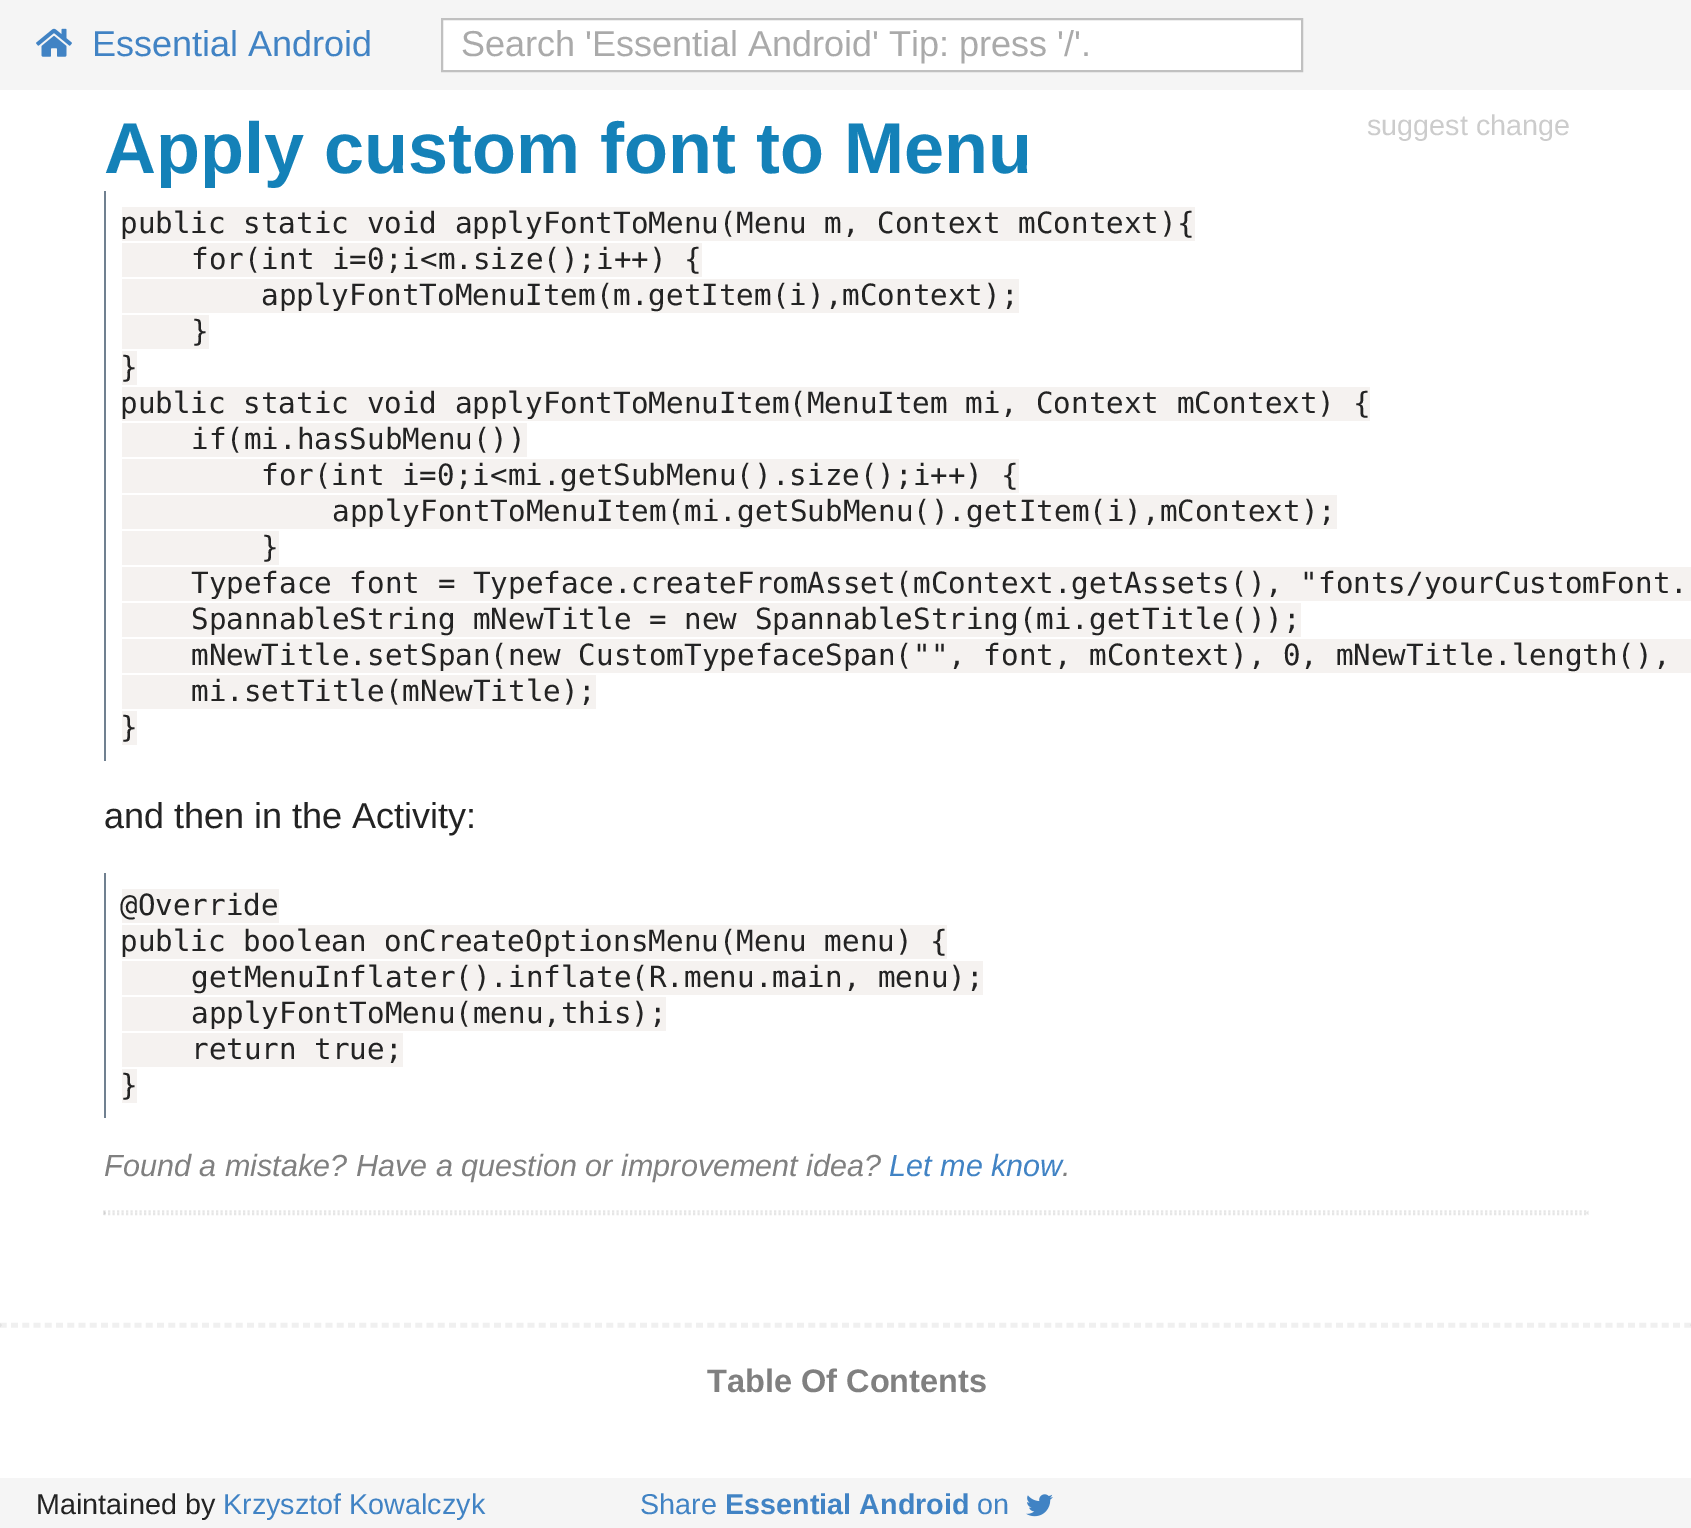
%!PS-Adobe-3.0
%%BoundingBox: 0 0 1691 1528
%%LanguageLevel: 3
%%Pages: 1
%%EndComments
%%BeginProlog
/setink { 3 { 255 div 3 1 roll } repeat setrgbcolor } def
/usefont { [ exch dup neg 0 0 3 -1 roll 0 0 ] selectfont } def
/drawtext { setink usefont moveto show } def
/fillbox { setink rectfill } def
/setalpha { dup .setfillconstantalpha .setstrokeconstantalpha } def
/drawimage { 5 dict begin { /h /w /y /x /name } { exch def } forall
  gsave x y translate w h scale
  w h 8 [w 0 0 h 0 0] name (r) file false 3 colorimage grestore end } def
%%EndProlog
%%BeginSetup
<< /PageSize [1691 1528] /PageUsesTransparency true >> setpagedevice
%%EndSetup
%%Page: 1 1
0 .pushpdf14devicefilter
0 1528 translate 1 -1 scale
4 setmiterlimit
0 0 1691 1528 255 255 255 fillbox
0 0 1691 90 245 245 245 fillbox
(assets/img1.rgb) 36 28 36 29 drawimage
(Essential Android) 92 56 /LiberationSans-Regular 36 65 131 196 drawtext
255 255 255 setink
442 19 moveto 1302 19 lineto 1302 71 lineto 442 71 lineto closepath gsave fill grestore
192 192 192 setink
2 setlinewidth
stroke
(Search 'Essential Android' Tip: press '/'.) 461 56 /LiberationSans-Regular 36 170 170 170 drawtext
(Apply custom font to Menu) 104 173 /LiberationSans-Bold 72 20 129 184 drawtext
(suggest change) 1367 135 /LiberationSans-Regular 28.75 204 204 204 drawtext
104 191 2 570 112 128 144 fillbox
122 207 1073 34 245 242 240 fillbox
(public static void applyFontToMenu\(Menu m, Context mContext\){) 120 233 /DejaVuSansMono-Regular 29.25 35 35 35 drawtext
122 243 580 34 245 242 240 fillbox
(for\(int i=0;i<m.size\(\);i++\) {) 191 269 /DejaVuSansMono-Regular 29.25 35 35 35 drawtext
122 279 897 34 245 242 240 fillbox
(applyFontToMenuItem\(m.getItem\(i\),mContext\);) 261 305 /DejaVuSansMono-Regular 29.25 35 35 35 drawtext
122 315 87 34 245 242 240 fillbox
(}) 191 341 /DejaVuSansMono-Regular 29.25 35 35 35 drawtext
122 351 15 34 245 242 240 fillbox
(}) 120 377 /DejaVuSansMono-Regular 29.25 35 35 35 drawtext
122 387 1248 34 245 242 240 fillbox
(public static void applyFontToMenuItem\(MenuItem mi, Context mContext\) {) 120 413 /DejaVuSansMono-Regular 29.25 35 35 35 drawtext
122 423 405 34 245 242 240 fillbox
(if\(mi.hasSubMenu\(\)\)) 191 449 /DejaVuSansMono-Regular 29.25 35 35 35 drawtext
122 459 897 34 245 242 240 fillbox
(for\(int i=0;i<mi.getSubMenu\(\).size\(\);i++\) {) 261 485 /DejaVuSansMono-Regular 29.25 35 35 35 drawtext
122 495 1215 34 245 242 240 fillbox
(applyFontToMenuItem\(mi.getSubMenu\(\).getItem\(i\),mContext\);) 332 521 /DejaVuSansMono-Regular 29.25 35 35 35 drawtext
122 531 157 34 245 242 240 fillbox
(}) 261 557 /DejaVuSansMono-Regular 29.25 35 35 35 drawtext
122 567 1569 34 245 242 240 fillbox
(Typeface font = Typeface.createFromAsset\(mContext.getAssets\(\), "fonts/yourCustomFont.) 191 593 /DejaVuSansMono-Regular 29.25 35 35 35 drawtext
122 603 1179 34 245 242 240 fillbox
(SpannableString mNewTitle = new SpannableString\(mi.getTitle\(\)\);) 191 629 /DejaVuSansMono-Regular 29.25 35 35 35 drawtext
122 639 1569 34 245 242 240 fillbox
(mNewTitle.setSpan\(new CustomTypefaceSpan\("", font, mContext\), 0, mNewTitle.length\(\),) 191 665 /DejaVuSansMono-Regular 29.25 35 35 35 drawtext
122 675 474 34 245 242 240 fillbox
(mi.setTitle\(mNewTitle\);) 191 701 /DejaVuSansMono-Regular 29.25 35 35 35 drawtext
122 711 15 34 245 242 240 fillbox
(}) 120 737 /DejaVuSansMono-Regular 29.25 35 35 35 drawtext
(and then in the Activity:) 104 828 /LiberationSans-Regular 36 35 35 35 drawtext
104 873 2 245 112 128 144 fillbox
122 889 157 34 245 242 240 fillbox
(@Override) 120 915 /DejaVuSansMono-Regular 29.25 35 35 35 drawtext
122 925 825 34 245 242 240 fillbox
(public boolean onCreateOptionsMenu\(Menu menu\) {) 120 951 /DejaVuSansMono-Regular 29.25 35 35 35 drawtext
122 961 861 34 245 242 240 fillbox
(getMenuInflater\(\).inflate\(R.menu.main, menu\);) 191 987 /DejaVuSansMono-Regular 29.25 35 35 35 drawtext
122 997 544 34 245 242 240 fillbox
(applyFontToMenu\(menu,this\);) 191 1023 /DejaVuSansMono-Regular 29.25 35 35 35 drawtext
122 1033 281 34 245 242 240 fillbox
(return true;) 191 1059 /DejaVuSansMono-Regular 29.25 35 35 35 drawtext
122 1069 15 34 245 242 240 fillbox
(}) 120 1095 /DejaVuSansMono-Regular 29.25 35 35 35 drawtext
(Found a mistake? Have a question or improvement idea?) 104 1176 /LiberationSans-Italic 30.6 128 128 128 drawtext
(Let me know) 889 1176 /LiberationSans-Italic 30.6 65 131 196 drawtext
(.) 1062 1176 /LiberationSans-Italic 30.6 128 128 128 drawtext
230 230 230 setink
2.2 setlinewidth
[2.25 2.25] 0 setdash
103.5 1211.5 moveto 1588.5 1211.5 lineto stroke
0.1 setalpha
1 1 1 setink
1588.5 1210.5 moveto 1588.5 1215 lineto 1586 1213 lineto closepath fill
1 setalpha
230 230 230 setink
103.5 1214 moveto 1588.5 1214 lineto stroke
0.1 setalpha
1 1 1 setink
103.5 1215 moveto 103.5 1210.5 lineto 106 1213 lineto closepath fill
1 setalpha
240 240 240 setink
[6.75 4.48] 0 setdash
0 1324 moveto 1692 1324 lineto stroke
0.06 setalpha
1 1 1 setink
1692 1323 moveto 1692 1327.5 lineto 1690 1325 lineto closepath fill
0 1326.5 moveto 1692 1326.5 lineto stroke
0 1327.5 moveto 0 1323 lineto 2 1325 lineto closepath fill
1 setalpha
(Table Of Contents) 707 1392 /LiberationSans-Bold 32.5 128 128 128 drawtext
0 1478 1691 50 245 245 245 fillbox
(Maintained by) 36 1514 /LiberationSans-Regular 28.75 35 35 35 drawtext
(Krzysztof Kowalczyk) 223 1514 /LiberationSans-Regular 28.75 65 131 196 drawtext
(Share) 640 1514 /LiberationSans-Regular 28.75 65 131 196 drawtext
(Essential Android) 725 1514 /LiberationSans-Bold 28.75 65 131 196 drawtext
(on) 977 1514 /LiberationSans-Regular 28.75 65 131 196 drawtext
(assets/img2.rgb) 1026 1494 27 23 drawimage
.poppdf14devicefilter showpage
%%EOF
